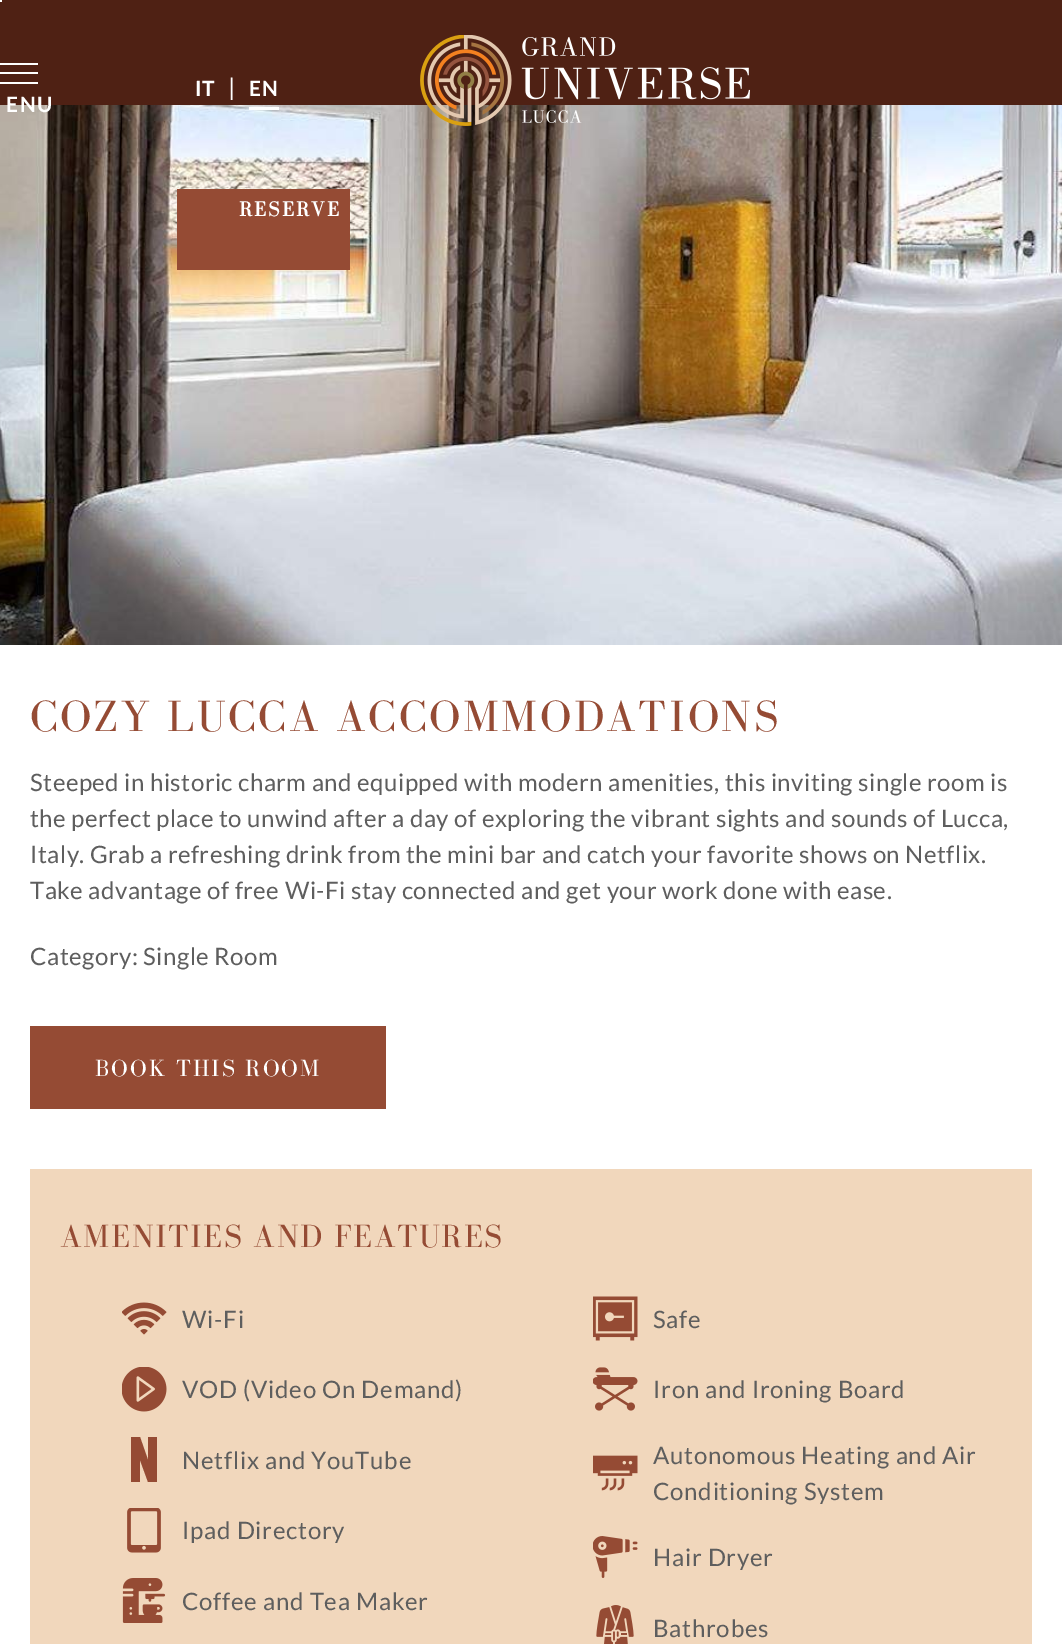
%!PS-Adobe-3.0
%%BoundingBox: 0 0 1062 1644
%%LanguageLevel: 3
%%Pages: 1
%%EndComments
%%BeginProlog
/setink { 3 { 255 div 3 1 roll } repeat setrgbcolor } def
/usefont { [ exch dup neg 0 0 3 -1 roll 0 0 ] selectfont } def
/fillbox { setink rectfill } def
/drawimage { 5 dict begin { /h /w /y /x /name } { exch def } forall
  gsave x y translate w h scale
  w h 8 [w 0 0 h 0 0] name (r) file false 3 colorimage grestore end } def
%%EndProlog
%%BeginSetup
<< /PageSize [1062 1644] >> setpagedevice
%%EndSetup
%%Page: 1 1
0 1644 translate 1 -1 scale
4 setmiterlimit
0 0 1062 1644 255 255 255 fillbox
0 0 1062 105 79 33 20 fillbox
0 0 2 2 255 255 255 fillbox
/Lato-Bold 21 usefont
195 96 moveto 0.75 0 (IT) ashow
/Lato-Regular 24 usefont
228 96 moveto 0.75 0 (|) ashow
(assets/img2.rgb) 0 105 1062 540 drawimage
249 107 30 3 255 255 255 fillbox
/Lato-Bold 21 usefont
249 96 moveto 0.75 0 (EN) ashow
0 63 38 2 255 255 255 fillbox
0 72 38 2 255 255 255 fillbox
0 82 38 2 255 255 255 fillbox
6 112 moveto 1.5 0 (ENU) ashow
(assets/img1.rgb) 420 35 330 91 drawimage
177 189 173 81 149 75 52 fillbox
/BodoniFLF-Bold 21 usefont
255 255 255 setink
239 216 moveto 2.1 0 (RESERVE) ashow
/BodoniFLF-Regular 45 usefont
149 75 52 setink
30 731 moveto 2.7 0 (COZY LUCCA ACCOMMODATIONS) ashow
/Lato-Regular 24 usefont
94 94 94 setink
30 791 moveto 0.48 0 (Steeped in historic charm and equipped with modern amenities, this inviting single room is) ashow
30 827 moveto 0.48 0 (the perfect place to unwind after a day of exploring the vibrant sights and sounds of Lucca,) ashow
30 863 moveto 0.48 0 (Italy. Grab a refreshing drink from the mini bar and catch your favorite shows on Netflix.) ashow
30 899 moveto 0.48 0 (Take advantage of free Wi-Fi stay connected and get your work done with ease.) ashow
30 965 moveto 0.48 0 (Category: Single Room) ashow
30 1026 356 83 149 75 52 fillbox
/BodoniFLF-Regular 24 usefont
255 255 255 setink
95 1076 moveto 2.1 0 (BOOK THIS ROOM) ashow
30 1169 1002 475 241 215 188 fillbox
/BodoniFLF-Regular 33 usefont
149 75 52 setink
60 1247 moveto 1.5 0 (AMENITIES AND FEATURES) ashow
(assets/img3.rgb) 122 1302 45 33 drawimage
/Lato-Regular 24 usefont
94 94 94 setink
182 1328 moveto 0.75 0 (Wi-Fi) ashow
(assets/img4.rgb) 593 1296 45 45 drawimage
653 1328 moveto 0.75 0 (Safe) ashow
(assets/img5.rgb) 122 1367 45 45 drawimage
182 1398 moveto 0.75 0 (VOD \(Video On Demand\)) ashow
(assets/img6.rgb) 593 1367 45 44 drawimage
653 1398 moveto 0.75 0 (Iron and Ironing Board) ashow
149 75 52 setink
148 1437 moveto 148 1460 lineto 140 1437 lineto 131 1437 lineto 131 1482 lineto 140 1482 lineto 140 1460 lineto 148 1482 lineto 157 1482 lineto 157 1437 lineto closepath fill
94 94 94 setink
182 1469 moveto 0.75 0 (Netflix and YouTube) ashow
(assets/img7.rgb) 593 1455 45 36 drawimage
653 1464 moveto 0.75 0 (Autonomous Heating and Air) ashow
653 1500 moveto 0.75 0 (Conditioning System) ashow
(assets/img8.rgb) 127 1508 34 45 drawimage
182 1539 moveto 0.75 0 (Ipad Directory) ashow
(assets/img9.rgb) 593 1536 45 42 drawimage
653 1566 moveto 0.75 0 (Hair Dryer) ashow
(assets/img10.rgb) 122 1578 44 45 drawimage
182 1610 moveto 0.75 0 (Coffee and Tea Maker) ashow
(assets/img11.rgb) 596 1605 38 39 drawimage
653 1637 moveto 0.75 0 (Bathrobes) ashow
showpage
%%EOF
